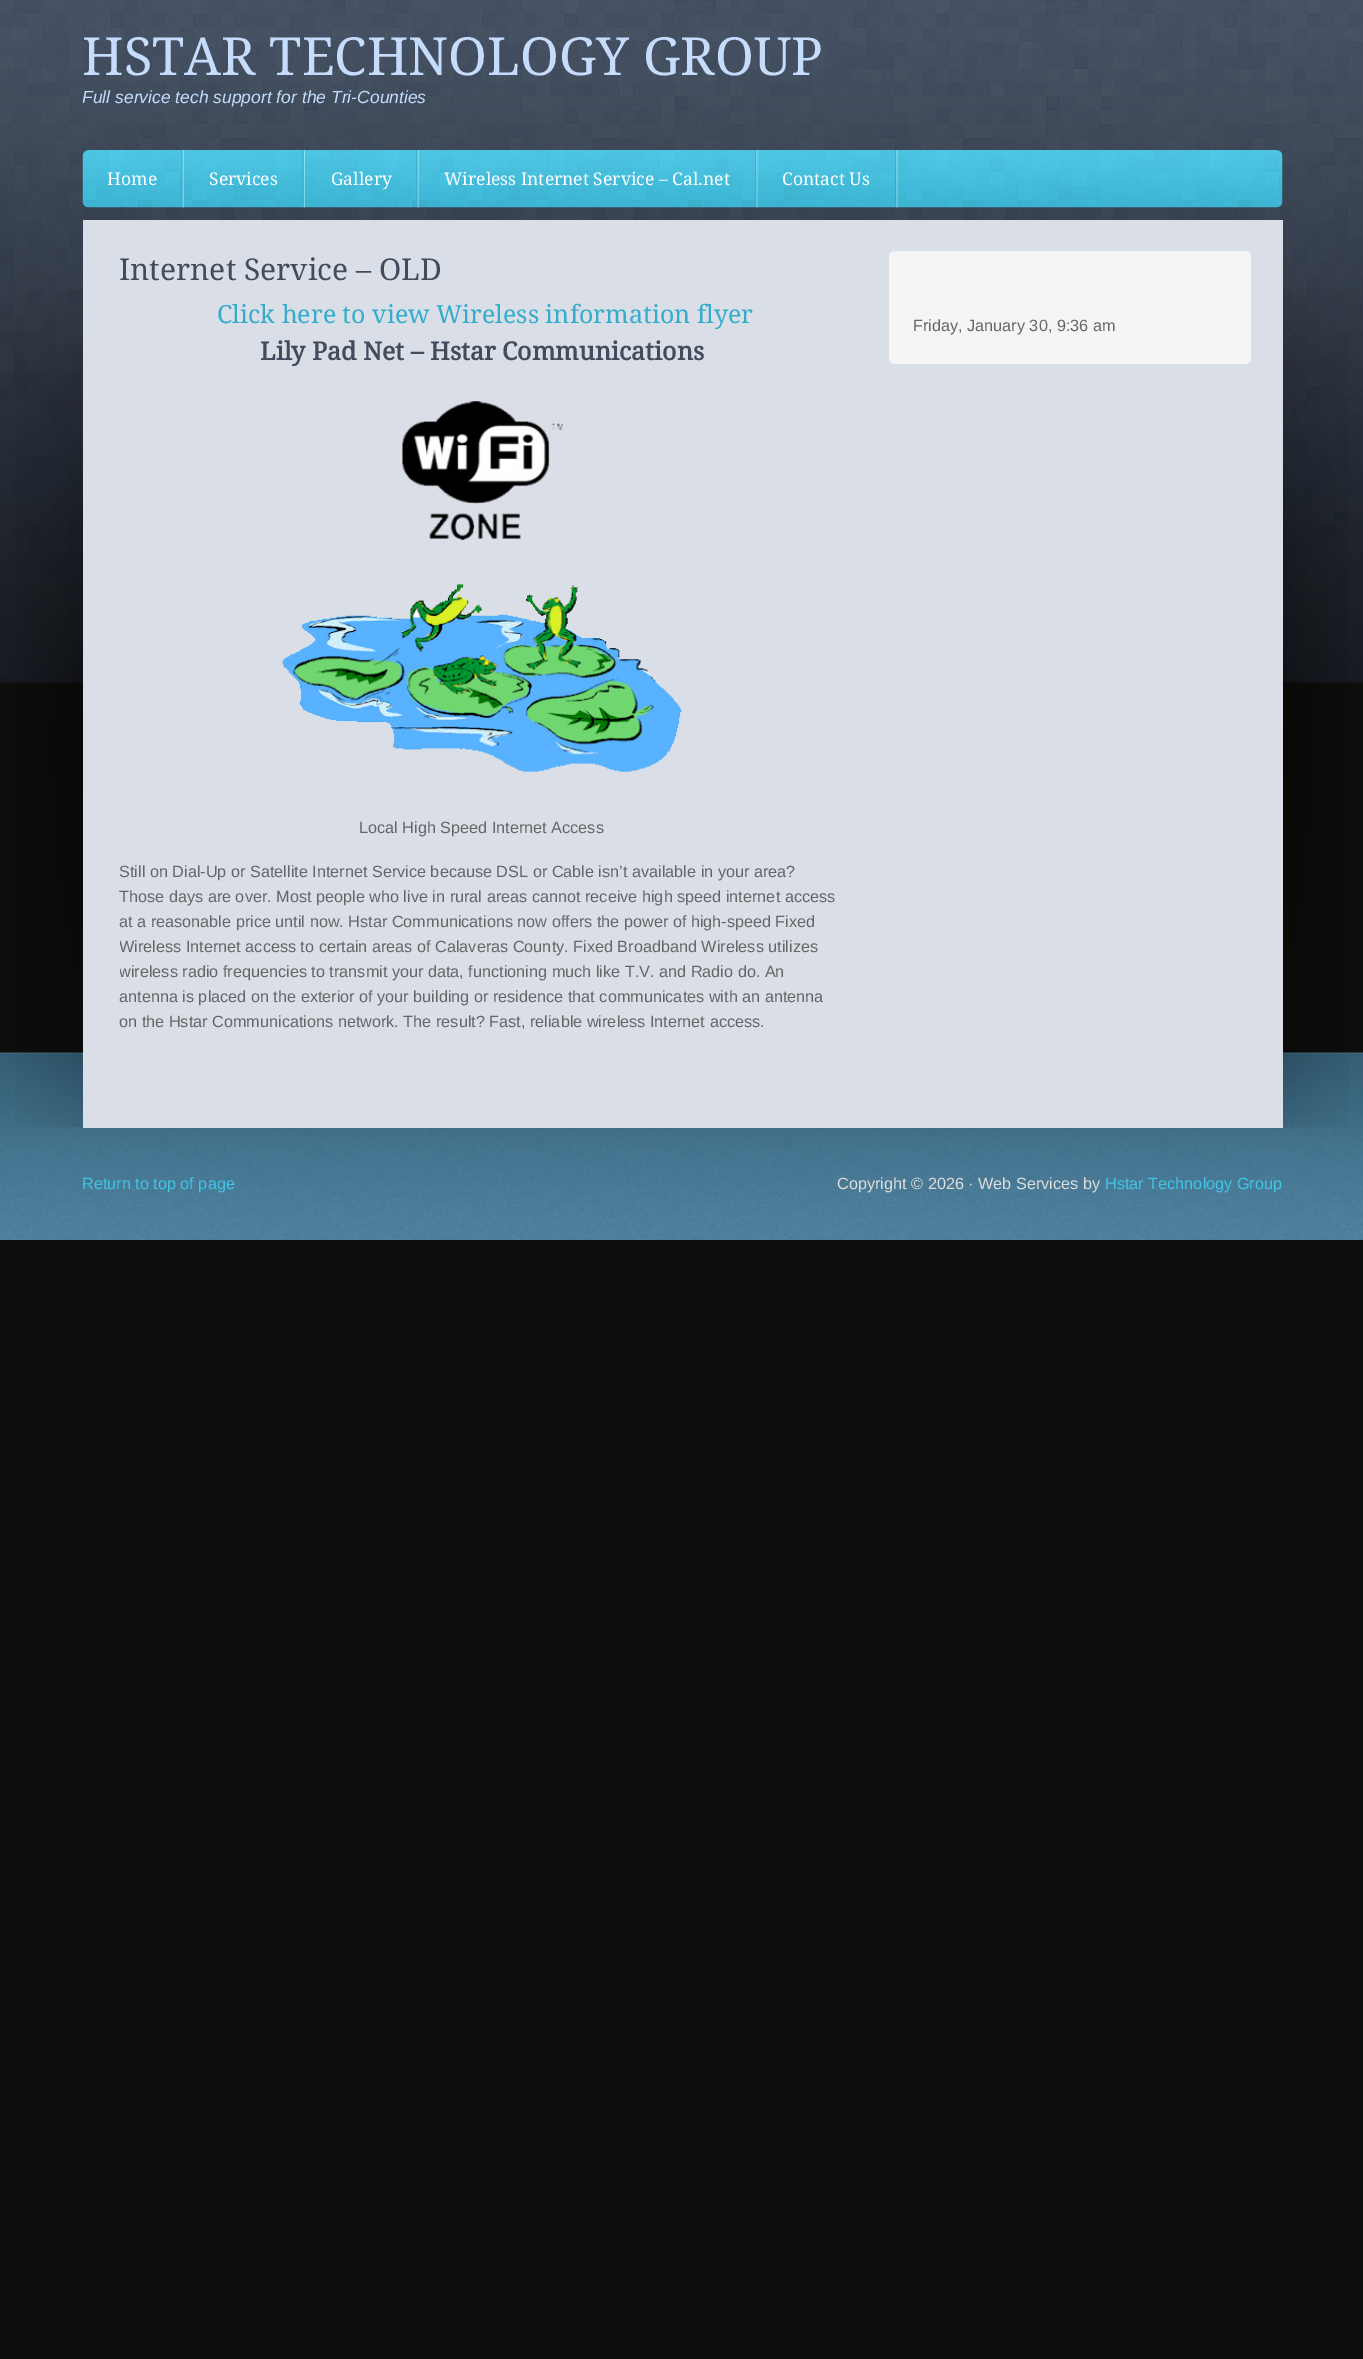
%!PS-Adobe-3.0
%%BoundingBox: 0 0 1363 2359
%%LanguageLevel: 3
%%Pages: 1
%%EndComments
%%BeginProlog
/setink { 3 { 255 div 3 1 roll } repeat setrgbcolor } def
/usefont { [ exch dup neg 0 0 3 -1 roll 0 0 ] selectfont } def
/drawtext { setink usefont moveto show } def
/fillbox { setink rectfill } def
/rrect { 5 dict begin { /r /h /w /y /x } { exch def } forall
  x r add y moveto x w add y 2 copy h add r arct x w add y h add x 1 index r arct
  x y h add x y r arct x y 2 copy exch w add exch r arct closepath end } def
/drawimage { 5 dict begin { /h /w /y /x /name } { exch def } forall
  gsave x y translate w h scale
  w h 8 [w 0 0 h 0 0] name (r) file false 3 colorimage grestore end } def
%%EndProlog
%%BeginSetup
<< /PageSize [1363 2359] >> setpagedevice
%%EndSetup
%%Page: 1 1
0 2359 translate 1 -1 scale
4 setmiterlimit
0 0 1363 2359 13 13 12 fillbox
(assets/img1.rgb) 0 1052 1363 188 drawimage
(assets/img2.rgb) 0 0 1363 683 drawimage
(HSTAR TECHNOLOGY GROUP) 82 75 /DroidSerif-Regular 52.5 197 220 253 drawtext
gsave
83 0 1200 109 rectclip
(Full service tech support for the Tri-Counties) 82 103 /LiberationSans-Italic 17.5 197 220 253 drawtext
grestore
(assets/img3.rgb) 82 150 1201 58 drawimage
(assets/img4.rgb) 181 150 3 58 drawimage
(Home) 107 185 /DroidSerif-Regular 17.5 255 255 255 drawtext
(assets/img5.rgb) 302 150 3 58 drawimage
(Services) 209 185 /DroidSerif-Regular 17.5 255 255 255 drawtext
(assets/img6.rgb) 416 150 3 58 drawimage
(Gallery) 331 185 /DroidSerif-Regular 17.5 255 255 255 drawtext
(assets/img7.rgb) 755 150 3 58 drawimage
(Wireless Internet Service – Cal.net) 444 185 /DroidSerif-Regular 17.5 255 255 255 drawtext
(assets/img8.rgb) 895 150 3 58 drawimage
(Contact Us) 782 185 /DroidSerif-Regular 17.5 255 255 255 drawtext
(assets/img9.rgb) 15 288 1334 840 drawimage
83 220 1200 908 218 222 231 fillbox
(Internet Service – OLD) 119 280 /DroidSerif-Regular 30 66 76 93 drawtext
(Click here to view Wireless information flyer) 217 323 /DroidSerif-Regular 25 52 172 203 drawtext
(Lily Pad Net – Hstar Communications) 260 360 /DroidSerif-Bold 25 66 76 93 drawtext
(assets/img10.rgb) 402 401 161 139 drawimage
(assets/img11.rgb) 282 584 401 188 drawimage
(Local High Speed Internet Access) 359 833 /LiberationSans-Regular 16.25 102 102 102 drawtext
(Still on Dial-Up or Satellite Internet Service because DSL or Cable isn’t available in your area?) 119 877 /LiberationSans-Regular 16.25 102 102 102 drawtext
(Those days are over. Most people who live in rural areas cannot receive high speed internet access) 119 902 /LiberationSans-Regular 16.25 102 102 102 drawtext
(at a reasonable price until now. Hstar Communications now offers the power of high-speed Fixed) 119 927 /LiberationSans-Regular 16.25 102 102 102 drawtext
gsave
120 301 725 795 rectclip
(Wireless Internet access to certain areas of Calaveras County. Fixed Broadband Wireless utilizes) 119 952 /LiberationSans-Regular 16.25 102 102 102 drawtext
(wireless radio frequencies to transmit your data, functioning much like T.V. and Radio do. An) 119 977 /LiberationSans-Regular 16.25 102 102 102 drawtext
grestore
(antenna is placed on the exterior of your building or residence that communicates with an antenna) 119 1002 /LiberationSans-Regular 16.25 102 102 102 drawtext
(on the Hstar Communications network. The result? Fast, reliable wireless Internet access.) 119 1027 /LiberationSans-Regular 16.25 102 102 102 drawtext
245 245 245 setink
889 251 362 113 6 rrect fill
(Friday, January 30, 9:36 am) 913 331 /LiberationSans-Regular 16.25 102 102 102 drawtext
(Return to top of page) 82 1189 /LiberationSans-Regular 16.25 65 197 231 drawtext
(Copyright © 2026 · Web Services by) 837 1189 /LiberationSans-Regular 16.25 221 221 221 drawtext
(Hstar Technology Group) 1105 1189 /LiberationSans-Regular 16.25 65 197 231 drawtext
showpage
%%EOF
